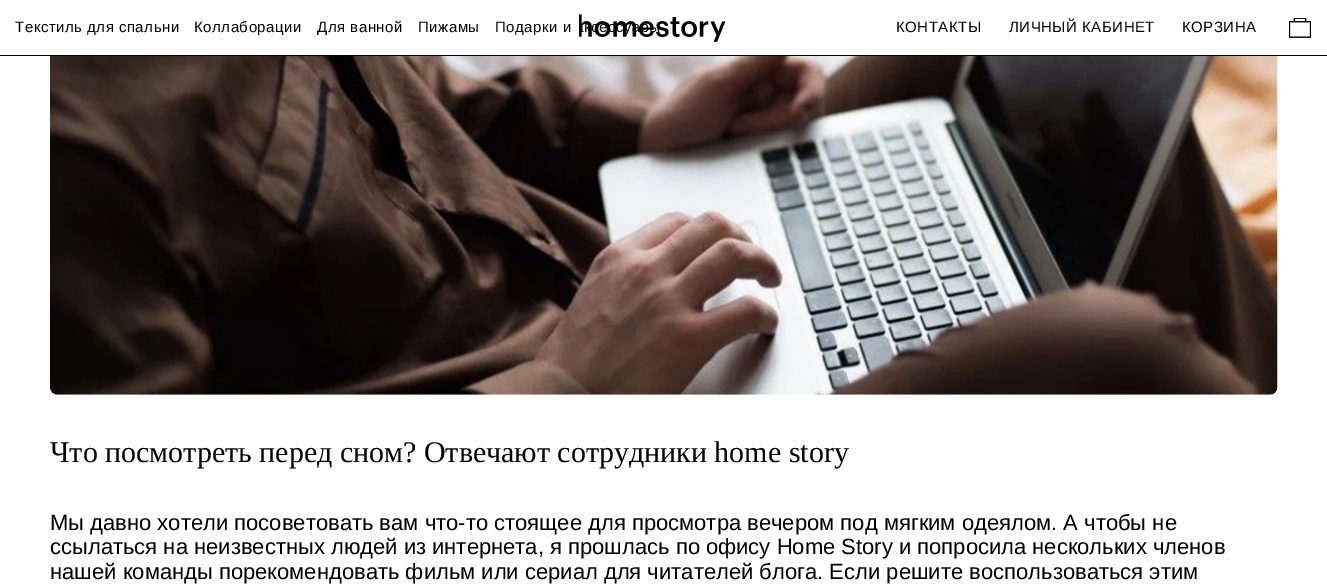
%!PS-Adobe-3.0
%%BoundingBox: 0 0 1327 587
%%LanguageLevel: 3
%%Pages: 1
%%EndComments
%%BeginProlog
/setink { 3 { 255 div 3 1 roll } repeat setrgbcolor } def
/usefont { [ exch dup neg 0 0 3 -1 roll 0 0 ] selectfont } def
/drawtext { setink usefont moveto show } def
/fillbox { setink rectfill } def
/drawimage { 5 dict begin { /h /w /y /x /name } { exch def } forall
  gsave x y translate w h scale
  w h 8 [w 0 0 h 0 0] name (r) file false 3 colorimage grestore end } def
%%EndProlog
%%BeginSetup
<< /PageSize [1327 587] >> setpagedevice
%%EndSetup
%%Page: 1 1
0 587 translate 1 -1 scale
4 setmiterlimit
0 0 1327 587 255 255 255 fillbox
0 55 1327 1 0 0 0 fillbox
/LiberationSans-Regular 15 usefont
15 32 moveto 0.5 0 (Текстиль для спальни) ashow
194 32 moveto 0.5 0 (Коллаборации) ashow
317 32 moveto 0.5 0 (Для ванной) ashow
418 32 moveto 0.5 0 (Пижамы) ashow
495 32 moveto 0.5 0 (Подарки и) ashow
599 32 moveto 0.5 0 (е) ashow
(assets/img1.rgb) 579 14 147 28 drawimage
896 32 moveto 0.5 0 (КОНТАКТЫ) ashow
1009 32 moveto 0.5 0 (ЛИЧНЫЙ КАБИНЕТ) ashow
1182 32 moveto 0.5 0 (КОРЗИНА) ashow
(assets/img2.rgb) 1289 18 22 20 drawimage
(assets/img3.rgb) 50 56 1228 339 drawimage
(Что посмотреть перед сном? Отвечают сотрудники home story) 50 462 /LiberationSerif-Regular 30 0 0 0 drawtext
(Мы давно хотели посоветовать вам что-то стоящее для просмотра вечером под мягким одеялом. А чтобы не) 50 530 /LiberationSans-Regular 22 0 0 0 drawtext
(ссылаться на неизвестных людей из интернета, я прошлась по офису Home Story и попросила нескольких членов) 50 554 /LiberationSans-Regular 22 0 0 0 drawtext
(нашей команды порекомендовать фильм или сериал для читателей блога. Если решите воспользоваться этим) 50 579 /LiberationSans-Regular 22 0 0 0 drawtext
showpage
%%EOF
